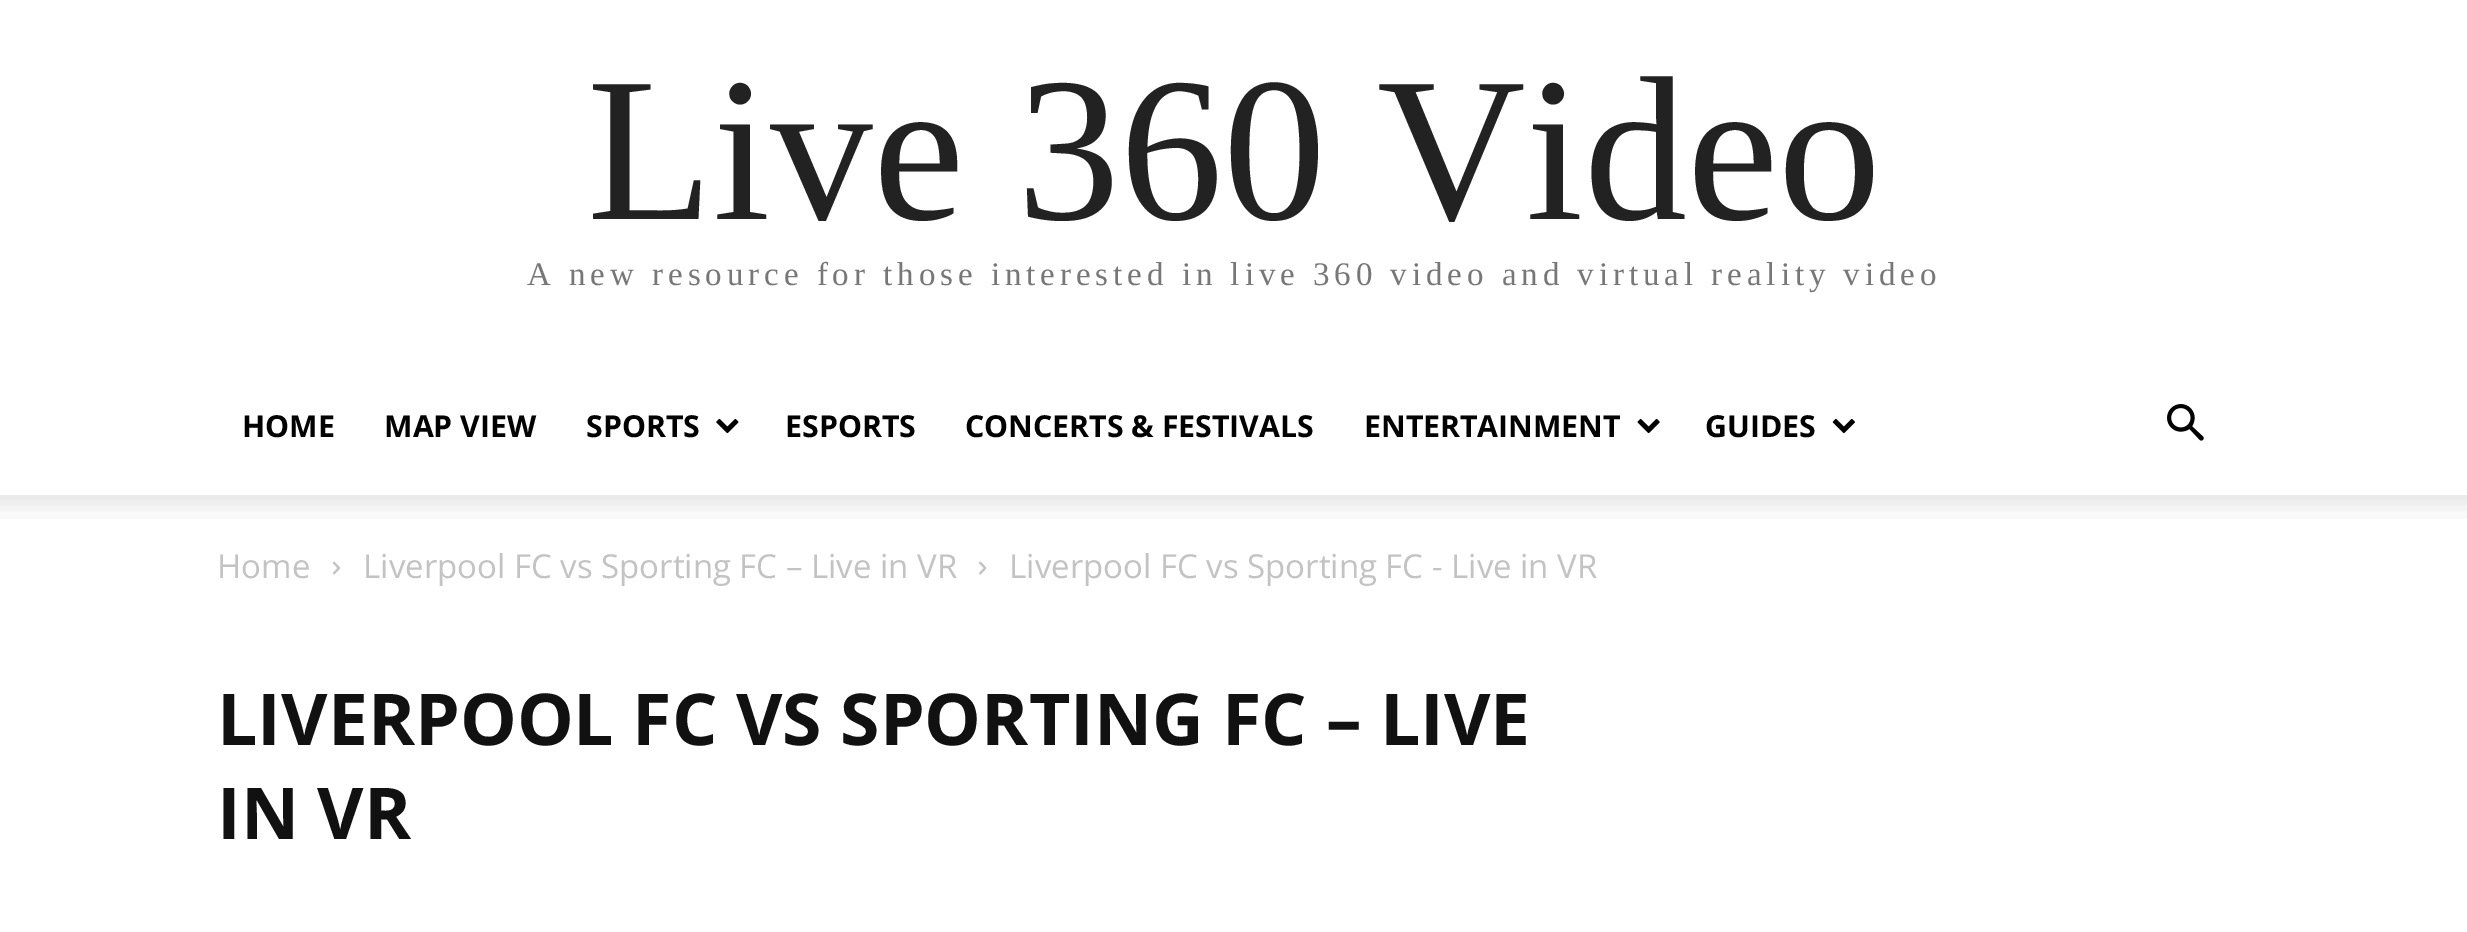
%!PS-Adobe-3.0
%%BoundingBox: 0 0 2467 932
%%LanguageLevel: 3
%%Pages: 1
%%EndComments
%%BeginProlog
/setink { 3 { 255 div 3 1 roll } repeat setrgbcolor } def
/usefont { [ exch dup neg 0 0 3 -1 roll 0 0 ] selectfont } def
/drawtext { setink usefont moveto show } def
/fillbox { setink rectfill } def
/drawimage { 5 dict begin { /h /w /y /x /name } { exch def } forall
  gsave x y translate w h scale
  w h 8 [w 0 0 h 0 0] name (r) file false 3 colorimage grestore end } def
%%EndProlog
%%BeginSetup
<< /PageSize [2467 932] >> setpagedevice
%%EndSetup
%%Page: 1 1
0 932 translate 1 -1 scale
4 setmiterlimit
0 0 2467 932 255 255 255 fillbox
(Live 360 Video) 587 219 /LiberationSerif-Regular 206.25 34 34 34 drawtext
/LiberationSerif-Regular 33 usefont
119 119 119 setink
527 285 moveto 4.95 0 (A new resource for those interested in live 360 video and virtual reality video) ashow
(HOME) 242 437 /OpenSans-Bold 30.25 0 0 0 drawtext
(MAP VIEW) 384 437 /OpenSans-Bold 30.25 0 0 0 drawtext
(SPORTS) 586 437 /OpenSans-Bold 30.25 0 0 0 drawtext
(assets/img1.rgb) 716 418 23 16 drawimage
(ESPORTS) 785 437 /OpenSans-Bold 30.25 0 0 0 drawtext
(CONCERTS & FESTIVALS) 965 437 /OpenSans-Bold 30.25 0 0 0 drawtext
(ENTERTAINMENT) 1364 437 /OpenSans-Bold 30.25 0 0 0 drawtext
(assets/img2.rgb) 1637 418 23 16 drawimage
(GUIDES) 1705 437 /OpenSans-Bold 30.25 0 0 0 drawtext
(assets/img3.rgb) 1832 418 23 16 drawimage
(assets/img4.rgb) 2167 404 37 37 drawimage
(assets/img5.rgb) 0 495 2467 24 drawimage
(Home) 217 578 /OpenSans-Regular 33 195 195 195 drawtext
(assets/img6.rgb) 332 561 9 14 drawimage
(Liverpool FC vs Sporting FC – Live in VR) 363 578 /OpenSans-Regular 33 195 195 195 drawtext
(assets/img7.rgb) 979 561 8 14 drawimage
(Liverpool FC vs Sporting FC - Live in VR) 1009 578 /OpenSans-Regular 33 195 195 195 drawtext
(LIVERPOOL FC VS SPORTING FC – LIVE) 217 745 /OpenSans-Bold 71.5 17 17 17 drawtext
(IN VR) 217 839 /OpenSans-Bold 71.5 17 17 17 drawtext
showpage
%%EOF
